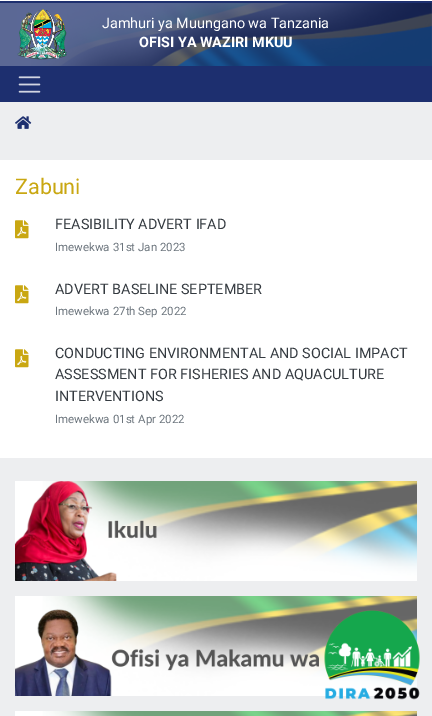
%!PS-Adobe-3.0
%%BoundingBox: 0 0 432 716
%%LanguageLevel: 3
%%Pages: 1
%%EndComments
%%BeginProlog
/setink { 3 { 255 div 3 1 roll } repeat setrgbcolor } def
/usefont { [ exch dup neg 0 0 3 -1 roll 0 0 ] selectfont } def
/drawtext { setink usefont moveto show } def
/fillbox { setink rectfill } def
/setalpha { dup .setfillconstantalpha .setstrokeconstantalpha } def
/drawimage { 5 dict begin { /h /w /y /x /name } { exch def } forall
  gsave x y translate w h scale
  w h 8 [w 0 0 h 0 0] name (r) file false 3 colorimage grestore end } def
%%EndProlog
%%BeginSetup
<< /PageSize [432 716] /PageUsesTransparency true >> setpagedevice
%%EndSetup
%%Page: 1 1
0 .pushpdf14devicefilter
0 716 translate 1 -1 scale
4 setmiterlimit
0 0 432 716 237 238 240 fillbox
(assets/img1.rgb) 31 3 401 63 drawimage
0 0 432 1 255 255 255 fillbox
0.7 setalpha
0 3 432 63 29 47 111 fillbox
1 setalpha
0 1 432 2 29 47 111 fillbox
(assets/img2.rgb) 17 9 50 51 drawimage
(Jamhuri ya Muungano wa Tanzania) 102 28 /Roboto-Regular 14.4 255 255 255 drawtext
(OFISI YA WAZIRI MKUU) 139 47 /Roboto-Bold 14.4 255 255 255 drawtext
0 66 432 36 29 47 111 fillbox
(assets/img3.rgb) 18 76 23 17 drawimage
(assets/img4.rgb) 15 116 17 13 drawimage
0 160 432 298 255 255 255 fillbox
(Zabuni) 15 194 /Roboto-Regular 21.5 201 167 18 drawtext
(assets/img5.rgb) 15 220 14 19 drawimage
(FEASIBILITY ADVERT IFAD) 55 229 /Roboto-Regular 14.4 52 58 64 drawtext
(Imewekwa 31st Jan 2023) 55 251 /Roboto-Regular 11.5 108 117 125 drawtext
(assets/img5.rgb) 15 285 14 19 drawimage
(ADVERT BASELINE SEPTEMBER) 55 294 /Roboto-Regular 14.4 52 58 64 drawtext
(Imewekwa 27th Sep 2022) 55 315 /Roboto-Regular 11.5 108 117 125 drawtext
(assets/img5.rgb) 15 349 14 19 drawimage
(CONDUCTING ENVIRONMENTAL AND SOCIAL IMPACT) 55 358 /Roboto-Regular 14.4 52 58 64 drawtext
(ASSESSMENT FOR FISHERIES AND AQUACULTURE) 55 379 /Roboto-Regular 14.4 52 58 64 drawtext
(INTERVENTIONS) 55 401 /Roboto-Regular 14.4 52 58 64 drawtext
(Imewekwa 01st Apr 2022) 55 423 /Roboto-Regular 11.5 108 117 125 drawtext
(assets/img6.rgb) 15 481 402 100 drawimage
(assets/img7.rgb) 15 596 402 100 drawimage
(assets/img8.rgb) 15 711 402 5 drawimage
(assets/img9.rgb) 324 610 96 90 drawimage
.poppdf14devicefilter showpage
%%EOF
